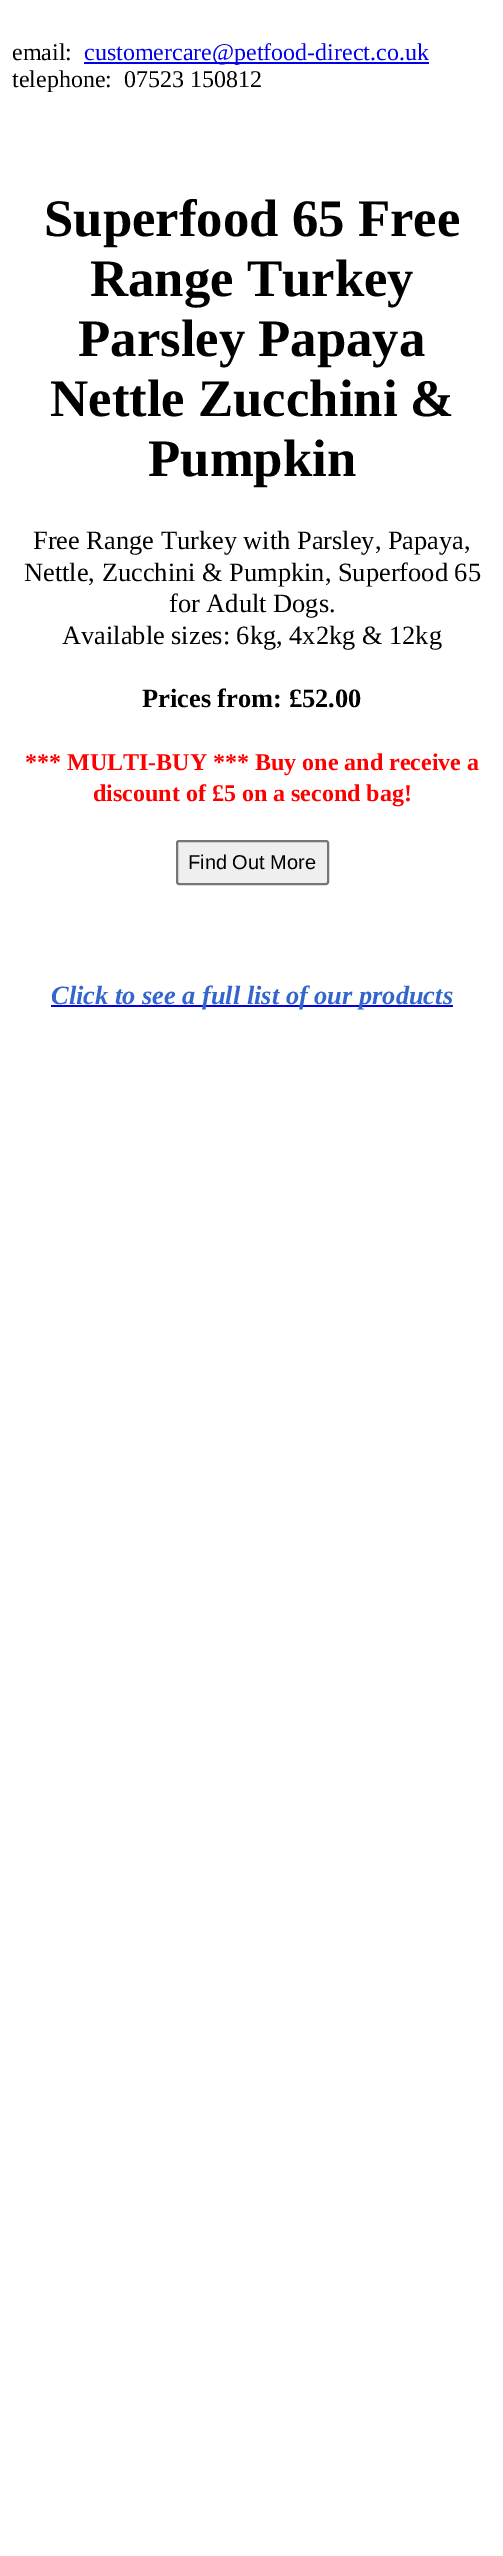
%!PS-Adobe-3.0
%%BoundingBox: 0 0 503 2556
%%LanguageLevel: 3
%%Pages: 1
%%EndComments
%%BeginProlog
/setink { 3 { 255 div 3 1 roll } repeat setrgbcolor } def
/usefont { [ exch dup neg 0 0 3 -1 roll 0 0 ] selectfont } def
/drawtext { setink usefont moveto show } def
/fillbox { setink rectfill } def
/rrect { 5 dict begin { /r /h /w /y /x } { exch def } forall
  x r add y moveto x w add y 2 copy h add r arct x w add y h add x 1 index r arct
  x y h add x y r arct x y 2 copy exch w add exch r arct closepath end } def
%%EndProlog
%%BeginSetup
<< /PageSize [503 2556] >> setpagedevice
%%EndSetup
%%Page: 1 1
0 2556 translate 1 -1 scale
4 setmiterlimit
0 0 503 2556 255 255 255 fillbox
(email:) 12 60 /LiberationSerif-Regular 24 0 0 0 drawtext
84 62 345 2 0 0 238 fillbox
(customercare@petfood-direct.co.uk) 84 60 /LiberationSerif-Regular 24 0 0 238 drawtext
(telephone:  07523 150812) 12 87 /LiberationSerif-Regular 24 0 0 0 drawtext
(Superfood 65 Free) 44 236 /LiberationSerif-Bold 52.75 0 0 0 drawtext
(Range Turkey) 90 296 /LiberationSerif-Bold 52.75 0 0 0 drawtext
(Parsley Papaya) 78 356 /LiberationSerif-Bold 52.75 0 0 0 drawtext
(Nettle Zucchini &) 50 416 /LiberationSerif-Bold 52.75 0 0 0 drawtext
(Pumpkin) 148 476 /LiberationSerif-Bold 52.75 0 0 0 drawtext
(Free Range Turkey with Parsley, Papaya,) 33 549 /LiberationSerif-Regular 26.4 0 0 0 drawtext
(Nettle, Zucchini & Pumpkin, Superfood 65) 24 581 /LiberationSerif-Regular 26.4 0 0 0 drawtext
(for Adult Dogs.) 169 612 /LiberationSerif-Regular 26.4 0 0 0 drawtext
(Available sizes: 6kg, 4x2kg & 12kg) 62 644 /LiberationSerif-Regular 26.4 0 0 0 drawtext
(Prices from: £52.00) 142 707 /LiberationSerif-Bold 26.4 0 0 0 drawtext
(*** MULTI-BUY *** Buy one and receive a) 25 770 /LiberationSerif-Bold 24 255 0 0 drawtext
(discount of £5 on a second bag!) 93 801 /LiberationSerif-Bold 24 255 0 0 drawtext
239 239 239 setink
177 841 151 43 2 rrect gsave fill grestore
118 118 118 setink
2 setlinewidth
stroke
(Find Out More) 188 869 /LiberationSans-Regular 20 0 0 0 drawtext
51 1005 402 2 0 0 238 fillbox
(Click to see a full list of our products) 51 1004 /LiberationSerif-BoldItalic 26.4 51 102 204 drawtext
showpage
%%EOF
